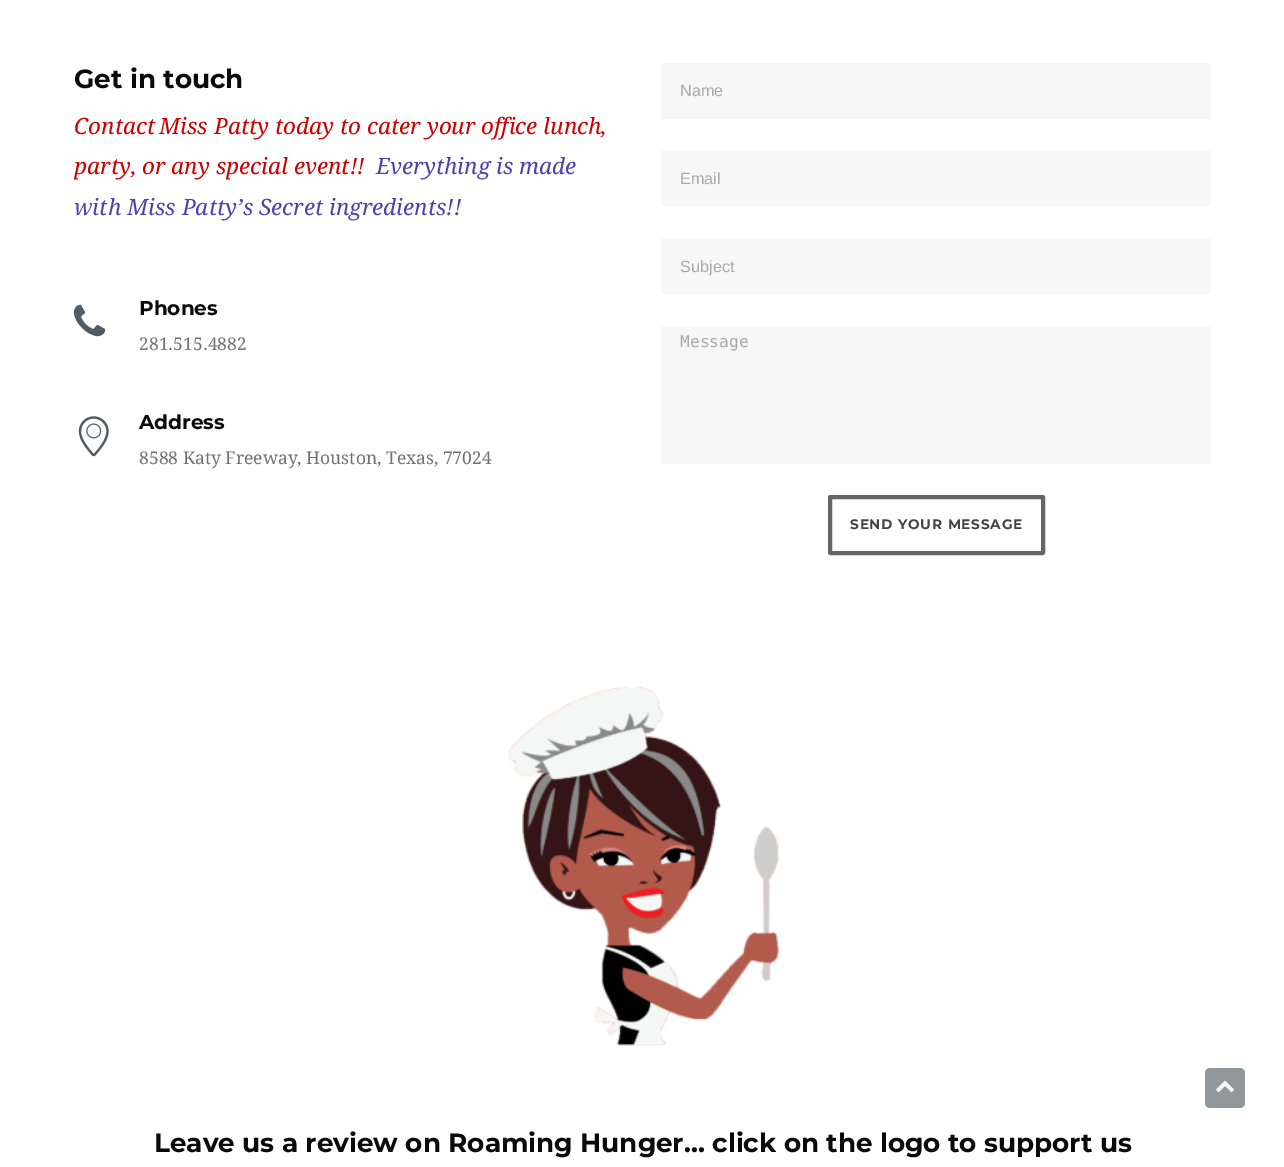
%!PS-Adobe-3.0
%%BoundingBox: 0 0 1284 1167
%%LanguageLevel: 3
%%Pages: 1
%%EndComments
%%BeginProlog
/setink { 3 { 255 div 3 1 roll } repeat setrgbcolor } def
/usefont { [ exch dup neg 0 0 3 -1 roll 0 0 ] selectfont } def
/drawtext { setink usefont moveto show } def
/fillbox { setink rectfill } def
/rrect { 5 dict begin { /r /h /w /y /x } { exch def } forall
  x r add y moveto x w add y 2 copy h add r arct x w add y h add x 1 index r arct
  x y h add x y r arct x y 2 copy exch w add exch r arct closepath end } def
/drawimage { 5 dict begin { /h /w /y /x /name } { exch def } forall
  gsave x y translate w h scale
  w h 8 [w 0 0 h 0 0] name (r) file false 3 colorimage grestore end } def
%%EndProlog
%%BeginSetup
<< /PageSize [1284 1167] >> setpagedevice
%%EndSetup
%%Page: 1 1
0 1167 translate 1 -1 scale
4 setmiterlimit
0 0 1284 1167 255 255 255 fillbox
(Get in touch) 74 88 /Montserrat-Bold 26.25 10 10 10 drawtext
(Contact) 74 134 /DroidSerif-Italic 22.5 204 0 0 drawtext
(Miss Patty today to cater your office lunch,) 159 134 /DroidSerif-Italic 22.5 204 0 0 drawtext
(party, or any special event!!) 74 174 /DroidSerif-Italic 22.5 204 0 0 drawtext
(Everything is made) 376 174 /DroidSerif-Italic 22.5 80 64 174 drawtext
(with Miss Patty’s Secret ingredients!!) 74 215 /DroidSerif-Italic 22.5 80 64 174 drawtext
(assets/img1.rgb) 73 304 33 33 drawimage
(Phones) 139 315 /Montserrat-Bold 20 10 10 10 drawtext
(281.515.4882) 139 350 /DroidSerif-Regular 17.5 113 113 113 drawtext
(assets/img2.rgb) 78 416 31 41 drawimage
(Address) 139 429 /Montserrat-Bold 20 10 10 10 drawtext
(8588 Katy Freeway, Houston, Texas, 77024) 139 464 /DroidSerif-Regular 17.5 113 113 113 drawtext
247 247 247 setink
661 63 550 56 1 rrect fill
(Name) 680 96 /LiberationSans-Regular 16.25 169 169 169 drawtext
247 247 247 setink
661 150 550 56 1 rrect fill
(Email) 680 184 /LiberationSans-Regular 16.25 169 169 169 drawtext
247 247 247 setink
661 238 550 56 1 rrect fill
gsave
680 256 519 19 rectclip
(Subject) 680 272 /LiberationSans-Regular 16.25 169 169 169 drawtext
grestore
661 326 550 138 1 rrect fill
(Message) 680 347 /DejaVuSansMono-Regular 16.25 169 169 169 drawtext
102 102 102 setink
4 setlinewidth
830 497 213 56 0.5 rrect stroke
/Montserrat-Bold 13.75 usefont
68 68 68 setink
850 529 moveto 0.75 0 (SEND YOUR MESSAGE) ashow
143 153 156 setink
1205 1068 40 40 5 rrect fill
(assets/img3.rgb) 1216 1080 18 13 drawimage
(assets/img4.rgb) 508 686 271 360 drawimage
(Leave us a review on Roaming Hunger… click on the logo to support us) 154 1152 /Montserrat-Bold 26.25 10 10 10 drawtext
showpage
%%EOF
